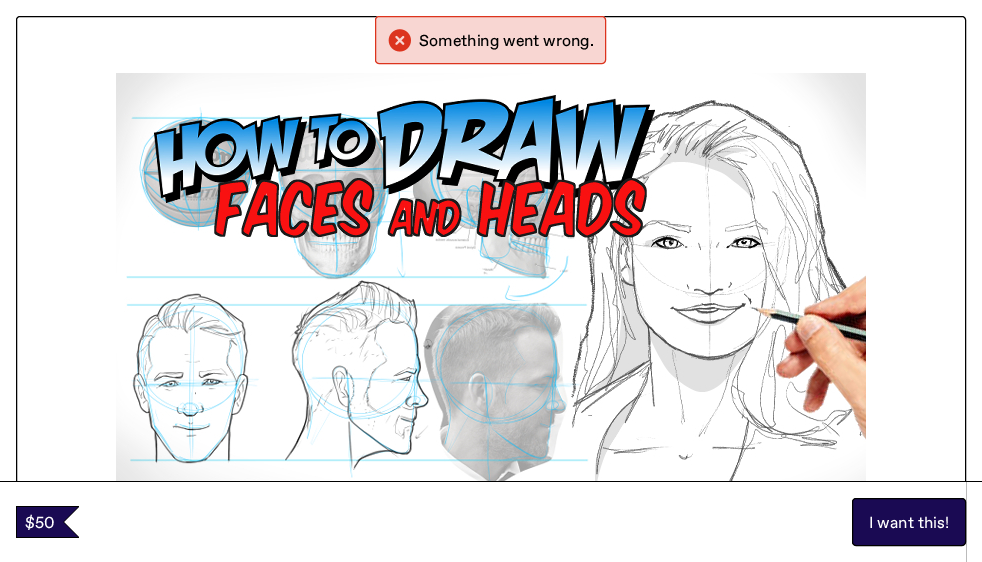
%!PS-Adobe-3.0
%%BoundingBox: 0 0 982 562
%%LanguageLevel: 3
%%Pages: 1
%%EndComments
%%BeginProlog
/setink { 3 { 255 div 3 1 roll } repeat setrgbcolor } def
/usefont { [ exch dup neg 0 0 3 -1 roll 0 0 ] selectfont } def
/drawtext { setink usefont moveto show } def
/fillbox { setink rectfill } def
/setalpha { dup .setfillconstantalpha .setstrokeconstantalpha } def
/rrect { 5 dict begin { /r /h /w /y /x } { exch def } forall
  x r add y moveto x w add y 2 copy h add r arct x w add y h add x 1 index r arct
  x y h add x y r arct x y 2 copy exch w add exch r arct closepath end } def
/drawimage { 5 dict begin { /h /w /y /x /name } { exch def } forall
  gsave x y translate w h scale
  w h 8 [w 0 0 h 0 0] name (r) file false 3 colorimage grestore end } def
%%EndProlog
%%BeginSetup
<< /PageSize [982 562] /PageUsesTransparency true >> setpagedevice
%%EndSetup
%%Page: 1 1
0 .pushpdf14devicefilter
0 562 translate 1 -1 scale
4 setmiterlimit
0 0 982 562 255 255 255 fillbox
0 0 0 setink
16.5 16.5 949 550 3.5 rrect stroke
255 255 255 setink
375 16 231 48 4 rrect fill
0.2 setalpha
220 52 30 setink
375.5 16.5 230 47 3.5 rrect fill
1 setalpha
375.5 16.5 230 47 3.5 rrect stroke
(assets/img1.rgb) 388 29 23 23 drawimage
(Something went wrong.) 419 46 /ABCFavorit-Regular 16 0 0 0 drawtext
(assets/img2.rgb) 116 73 750 408 drawimage
0 481 982 1 0 0 0 fillbox
16 482 950 80 255 255 255 fillbox
16 506 63 1 0 0 0 fillbox
16 537 63 1 0 0 0 fillbox
16 506 1 32 0 0 0 fillbox
17 507 46 30 26 10 83 fillbox
0 0 0 setink
63 507 moveto 79 507 lineto 64 522 lineto closepath 79 537 moveto 63 537 lineto 64 522 lineto closepath fill
63 521 1 2 0 0 0 fillbox
26 10 83 setink
62 507 moveto 78 507 lineto 63 522 lineto closepath 78 537 moveto 62 537 lineto 63 522 lineto closepath fill
($50) 25 528 /ABCFavorit-Regular 16 255 255 255 drawtext
26 10 83 setink
852.5 498.5 113 47 3.5 rrect gsave fill grestore
0 0 0 setink
stroke
(I want this!) 869 528 /ABCFavorit-Regular 16 255 255 255 drawtext
.poppdf14devicefilter showpage
%%EOF
